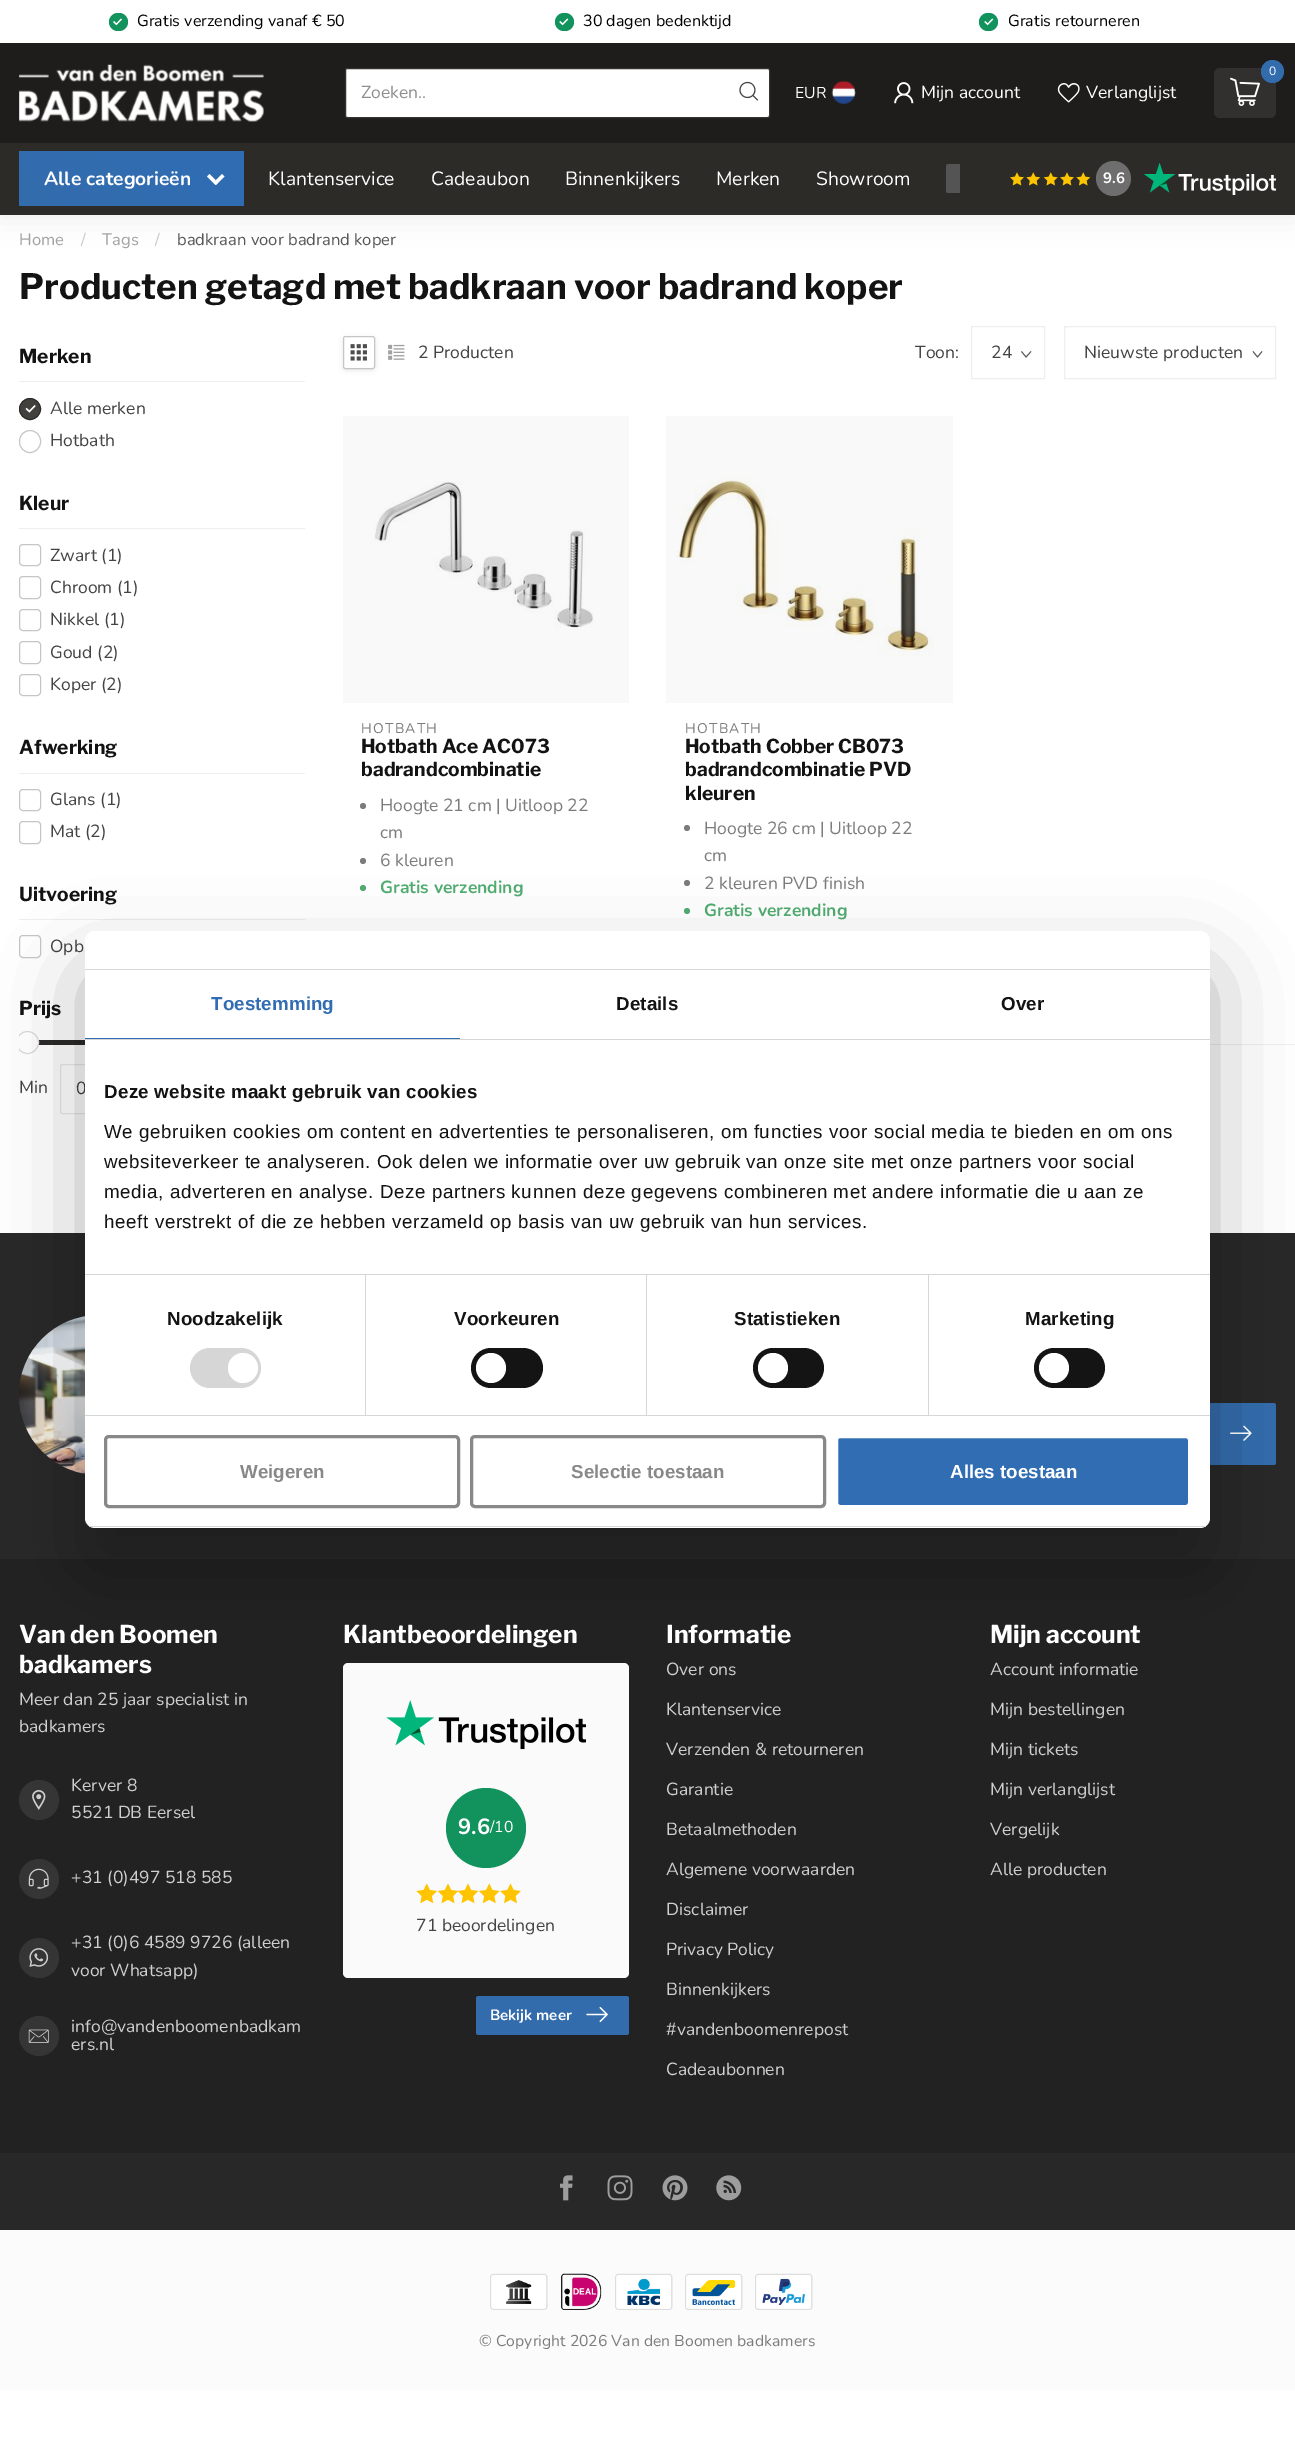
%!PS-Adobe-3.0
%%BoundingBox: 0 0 1295 2458
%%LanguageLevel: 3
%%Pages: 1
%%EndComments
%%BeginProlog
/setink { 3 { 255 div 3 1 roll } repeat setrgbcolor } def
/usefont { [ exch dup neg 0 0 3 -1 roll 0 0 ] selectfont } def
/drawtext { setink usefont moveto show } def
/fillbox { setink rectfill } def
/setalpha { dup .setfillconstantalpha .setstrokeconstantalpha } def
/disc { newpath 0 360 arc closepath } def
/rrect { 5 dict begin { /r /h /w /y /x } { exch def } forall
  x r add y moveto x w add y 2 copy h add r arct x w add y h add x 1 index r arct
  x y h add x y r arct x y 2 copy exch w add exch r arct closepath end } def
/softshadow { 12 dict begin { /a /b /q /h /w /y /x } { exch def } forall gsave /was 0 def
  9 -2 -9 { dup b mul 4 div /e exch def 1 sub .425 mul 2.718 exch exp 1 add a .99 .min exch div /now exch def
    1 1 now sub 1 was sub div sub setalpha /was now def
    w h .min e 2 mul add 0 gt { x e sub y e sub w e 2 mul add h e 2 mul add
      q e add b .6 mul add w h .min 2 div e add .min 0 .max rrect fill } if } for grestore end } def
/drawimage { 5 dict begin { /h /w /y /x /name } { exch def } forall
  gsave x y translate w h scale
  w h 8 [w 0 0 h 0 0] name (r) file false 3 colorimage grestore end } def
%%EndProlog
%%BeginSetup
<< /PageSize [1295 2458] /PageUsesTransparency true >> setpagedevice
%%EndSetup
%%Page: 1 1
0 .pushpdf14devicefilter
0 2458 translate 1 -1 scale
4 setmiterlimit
0 0 1295 2458 255 255 255 fillbox
0 0 0 setink
0 143 1295 72 0 14 0.08 softshadow
0 43 1295 100 31 29 27 fillbox
18 147 93 setink
109 13 19 18 9 rrect fill
(assets/img1.rgb) 113 18 9 8 drawimage
(Gratis verzending vanaf € 50) 137 26 /Nunito-Regular 16.1 0 0 0 drawtext
18 147 93 setink
555 13 19 18 9 rrect fill
(assets/img2.rgb) 559 18 10 8 drawimage
(30 dagen bedenktijd) 583 26 /Nunito-Regular 16.1 0 0 0 drawtext
18 147 93 setink
979 13 19 18 9 rrect fill
(assets/img2.rgb) 984 18 10 8 drawimage
(Gratis retourneren) 1008 26 /Nunito-Regular 16.1 0 0 0 drawtext
(assets/img3.rgb) 19 64 245 58 drawimage
255 255 255 setink
345.5 68.5 424 49 2 rrect gsave fill grestore
53 51 49 setink
stroke
(Zoeken..) 361 98 /Nunito-Regular 17.5 143 143 143 drawtext
(assets/img4.rgb) 739 81 19 20 drawimage
50 48 46 setink
1214 68 62 50 6 rrect fill
51 108 173 setink
1272.5 71.5 11.5 disc fill
(0) 1269 75 /Nunito-Regular 12 255 255 255 drawtext
(assets/img5.rgb) 1230 77 30 29 drawimage
(EUR) 795 98 /Nunito-Regular 15.75 255 255 255 drawtext
(assets/img6.rgb) 831 80 25 24 drawimage
(assets/img7.rgb) 894 82 20 22 drawimage
(Mijn account) 921 98 /Nunito-Regular 17.5 255 255 255 drawtext
(assets/img8.rgb) 1057 83 23 20 drawimage
(Verlanglijst) 1086 98 /Nunito-Regular 17.5 255 255 255 drawtext
0 143 1295 72 45 43 40 fillbox
gsave 19 151 225 55 2.5 rrect clip newpath
<< /ShadingType 2 /ColorSpace /DeviceRGB /Coords [61 249 201 109] /Extend [true true] /Function << /FunctionType 2 /Domain [0 1] /C0 [0.2 0.424 0.678] /C1 [0.188 0.427 0.702] /N 1 >> >> shfill grestore
(Alle categorieën) 44 185 /Nunito-Bold 19.25 255 255 255 drawtext
209.5 174 moveto 218 182.5 lineto 215.5 185 lineto 207 176.5 lineto closepath fill
213.5 182.5 moveto 222 174 lineto 224.5 176.5 lineto 216 185 lineto closepath fill
(Klantenservice) 268 185 /Nunito-Regular 19.25 255 255 255 drawtext
(Cadeaubon) 431 185 /Nunito-Regular 19.25 255 255 255 drawtext
(Binnenkijkers) 565 185 /Nunito-Regular 19.25 255 255 255 drawtext
(Merken) 716 185 /Nunito-Regular 19.25 255 255 255 drawtext
(Showroom) 816 185 /Nunito-Regular 19.25 255 255 255 drawtext
84 84 84 setink
948.5 164 moveto 960 164 lineto 960 193 lineto 948.5 193 lineto 947 193 946 192 946 190.5 curveto 946 166.5 lineto 946 165 947 164 948.5 164 curveto closepath fill
(assets/img9.rgb) 1010 172 14 14 drawimage
(assets/img10.rgb) 1026 172 15 14 drawimage
(assets/img11.rgb) 1043 172 15 14 drawimage
(assets/img9.rgb) 1060 172 14 14 drawimage
(assets/img10.rgb) 1076 172 15 14 drawimage
110 110 110 setink
1113.5 178.5 17.5 disc fill
(9.6) 1103 183 /Nunito-Bold 15 255 255 255 drawtext
(assets/img12.rgb) 1144 163 132 32 drawimage
(Home) 19 245 /Nunito-Regular 16.6 162 162 162 drawtext
(/) 81 245 /Nunito-Regular 16.6 199 199 199 drawtext
(Tags) 102 245 /Nunito-Regular 16.6 162 162 162 drawtext
(/) 155 245 /Nunito-Regular 16.6 199 199 199 drawtext
(badkraan voor badrand koper) 177 245 /Nunito-Regular 16.6 87 87 87 drawtext
(Producten getagd met badkraan voor badrand koper) 19 299 /LibreFranklin-Bold 35 19 19 19 drawtext
19 381 286 1 238 238 238 fillbox
(Merken) 19 363 /LibreFranklin-Bold 19.25 19 19 19 drawtext
66 64 61 setink
30 409 10.5 disc gsave fill grestore
45 43 40 setink
stroke
(assets/img13.rgb) 25 405 11 8 drawimage
(Alle merken) 50 414 /Nunito-Regular 17.5 68 68 68 drawtext
198 198 198 setink
19.5 430.5 21 22 10.5 rrect stroke
(Hotbath) 50 446 /Nunito-Regular 17.5 68 68 68 drawtext
19 528 286 1 238 238 238 fillbox
(Kleur) 19 510 /LibreFranklin-Bold 19.25 19 19 19 drawtext
198 198 198 setink
19.5 544.5 21 21 3.5 rrect stroke
(Zwart \(1\)) 50 561 /Nunito-Regular 17.5 68 68 68 drawtext
198 198 198 setink
19.5 576.5 21 22 3.5 rrect stroke
(Chroom \(1\)) 50 593 /Nunito-Regular 17.5 68 68 68 drawtext
198 198 198 setink
19.5 609.5 21 21 3.5 rrect stroke
(Nikkel \(1\)) 50 625 /Nunito-Regular 17.5 68 68 68 drawtext
198 198 198 setink
19.5 641.5 21 22 3.5 rrect stroke
(Goud \(2\)) 50 658 /Nunito-Regular 17.5 68 68 68 drawtext
198 198 198 setink
19.5 674.5 21 21 3.5 rrect stroke
(Koper \(2\)) 50 690 /Nunito-Regular 17.5 68 68 68 drawtext
19 773 286 1 238 238 238 fillbox
(Afwerking) 19 754 /LibreFranklin-Bold 19.25 19 19 19 drawtext
198 198 198 setink
19.5 789.5 21 21 3.5 rrect stroke
(Glans \(1\)) 50 805 /Nunito-Regular 17.5 68 68 68 drawtext
198 198 198 setink
19.5 821.5 21 22 3.5 rrect stroke
(Mat \(2\)) 50 837 /Nunito-Regular 17.5 68 68 68 drawtext
19 919 286 1 238 238 238 fillbox
(Uitvoering) 19 901 /LibreFranklin-Bold 19.25 19 19 19 drawtext
198 198 198 setink
19.5 935.5 21 22 3.5 rrect stroke
(Opb) 50 952 /Nunito-Regular 17.5 68 68 68 drawtext
(Prijs) 19 1015 /LibreFranklin-Bold 19.25 19 19 19 drawtext
31 1040 54 5 45 43 40 fillbox
gsave
19 345 286 788 rectclip
255 255 255 setink
27.5 1042.5 11 disc gsave fill grestore
217 217 217 setink
stroke
grestore
(Min) 19 1093 /Nunito-Regular 17.5 68 68 68 drawtext
232 232 232 setink
60.5 1064.5 89 49 2 rrect stroke
(0) 76 1094 /Nunito-Regular 17.5 68 68 68 drawtext
gsave
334 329 moveto 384 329 lineto 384 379 lineto 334 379 lineto closepath 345.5 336 moveto 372.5 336 lineto 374 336 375 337 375 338.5 curveto 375 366.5 lineto 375 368 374 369 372.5 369 curveto 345.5 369 lineto 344 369 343 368 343 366.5 curveto 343 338.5 lineto 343 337 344 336 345.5 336 curveto closepath eoclip newpath
0 0 0 setink
343 338 32 32 2.5 2.5 0.1 softshadow
grestore
198 198 198 setink
343.5 336.5 31 32 2 rrect stroke
(assets/img14.rgb) 350 344 17 17 drawimage
(assets/img15.rgb) 388 344 17 16 drawimage
(2 Producten) 418 358 /Nunito-Regular 17.5 68 68 68 drawtext
(Toon:) 915 358 /Nunito-Regular 17.5 68 68 68 drawtext
89 89 89 setink
0.9 setlinewidth
1031 351.5 moveto 1026 357 lineto 1021.5 351.5 lineto stroke
238 238 238 setink
1 setlinewidth
971.5 326.5 73 52 rectstroke
(24) 991 358 /Nunito-Regular 17.5 68 68 68 drawtext
89 89 89 setink
0.9 setlinewidth
1262 351.5 moveto 1257.5 357 lineto 1253 351.5 lineto stroke
238 238 238 setink
1 setlinewidth
1064.5 326.5 211 52 rectstroke
(Nieuwste producten) 1084 358 /Nunito-Regular 17.5 68 68 68 drawtext
(assets/img16.rgb) 374 481 220 147 drawimage
0.06 setalpha
343 416 286 287 155 155 155 fillbox
/Nunito-Regular 14 usefont
1 setalpha
124 124 124 setink
361 733 moveto 1.25 0 (HOTBATH) ashow
(Hotbath Ace AC073) 361 753 /LibreFranklin-Bold 19.25 19 19 19 drawtext
(badrandcombinatie) 361 776 /LibreFranklin-Bold 19.25 19 19 19 drawtext
124 124 124 setink
363 806 3 disc fill
(Hoogte 21 cm | Uitloop 22) 380 811 /Nunito-Regular 17.5 124 124 124 drawtext
(cm) 380 838 /Nunito-Regular 17.5 124 124 124 drawtext
363 861 3 disc fill
(6 kleuren) 380 866 /Nunito-Regular 17.5 124 124 124 drawtext
81 172 113 setink
363 888 3 disc fill
(Gratis verzending) 380 893 /Nunito-Bold 17.5 81 172 113 drawtext
(assets/img17.rgb) 675 475 259 181 drawimage
0.06 setalpha
666 416 287 287 155 155 155 fillbox
/Nunito-Regular 14 usefont
1 setalpha
124 124 124 setink
685 733 moveto 1.25 0 (HOTBATH) ashow
(Hotbath Cobber CB073) 685 753 /LibreFranklin-Bold 19.25 19 19 19 drawtext
(badrandcombinatie PVD) 685 776 /LibreFranklin-Bold 19.25 19 19 19 drawtext
(kleuren) 685 800 /LibreFranklin-Bold 19.25 19 19 19 drawtext
124 124 124 setink
687 828 3 disc fill
(Hoogte 26 cm | Uitloop 22) 704 834 /Nunito-Regular 17.5 124 124 124 drawtext
(cm) 704 861 /Nunito-Regular 17.5 124 124 124 drawtext
687 883 3 disc fill
(2 kleuren PVD finish) 704 889 /Nunito-Regular 17.5 124 124 124 drawtext
81 172 113 setink
687 911 3 disc fill
(Gratis verzending) 704 916 /Nunito-Bold 17.5 81 172 113 drawtext
1210 1044 85 1 238 238 238 fillbox
0 1559 1295 594 34 34 34 fillbox
0 1233 1295 326 40 40 40 fillbox
(assets/img18.rgb) 19 1316 66 158 drawimage
51 108 173 setink
1103 1403 moveto 1273.5 1403 lineto 1275 1403 1276 1404 1276 1405.5 curveto 1276 1462.5 lineto 1276 1464 1275 1465 1273.5 1465 curveto 1103 1465 lineto closepath fill
(assets/img19.rgb) 1230 1425 22 16 drawimage
250 250 250 setink
343 1663 286 315 5 rrect fill
0 0 0 setink
85 971 1125 597 10 42.5 0.3 softshadow
255 255 255 setink
85 931 1125 597 10 rrect fill
85 969 1125 1 214 214 214 fillbox
85 1039 1125 1 214 214 214 fillbox
85 1038 375 1 49 109 178 fillbox
/LiberationSans-Bold 18.75 usefont
211 1010 moveto 0.1 0 (Toestemming) ashow
19 19 19 setink
616 1010 moveto 0.1 0 (Details) ashow
1001 1010 moveto 0.1 0 (Over) ashow
85 1274 1125 1 214 214 214 fillbox
19 19 19 setink
104 1098 moveto 0.3 0 (Deze website maakt gebruik van cookies) ashow
/LiberationSans-Regular 18.75 usefont
104 1138 moveto 0.62 0 (We gebruiken cookies om content en advertenties te personaliseren, om functies voor social media te bieden en om ons) ashow
104 1168 moveto 0.62 0 (websiteverkeer te analyseren. Ook delen we informatie over uw gebruik van onze site met onze partners voor social) ashow
104 1198 moveto 0.62 0 (media, adverteren en analyse. Deze partners kunnen deze gegevens combineren met andere informatie die u aan ze) ashow
104 1228 moveto 0.62 0 (heeft verstrekt of die ze hebben verzameld op basis van uw gebruik van hun services.) ashow
85 1415 1125 1 214 214 214 fillbox
365 1275 1 140 214 214 214 fillbox
/LiberationSans-Bold 18.75 usefont
19 19 19 setink
167 1325 moveto 0.1 0 (Noodzakelijk) ashow
214 214 214 setink
190 1348 71 40 20 rrect fill
255 255 255 setink
243 1368 15 disc fill
646 1275 1 140 214 214 214 fillbox
19 19 19 setink
454 1325 moveto 0.1 0 (Voorkeuren) ashow
20 20 20 setink
471 1348 72 40 20 rrect fill
255 255 255 setink
491 1368 15 disc fill
928 1275 1 140 214 214 214 fillbox
19 19 19 setink
734 1325 moveto 0.1 0 (Statistieken) ashow
20 20 20 setink
753 1348 71 40 20 rrect fill
255 255 255 setink
773 1368 15 disc fill
19 19 19 setink
1025 1325 moveto 0.1 0 (Marketing) ashow
20 20 20 setink
1034 1348 71 40 20 rrect fill
255 255 255 setink
1054 1368 15 disc fill
gsave
85 931 1125 597 10 rrect clip newpath
85 1526 1125 1 214 214 214 fillbox
grestore
136 136 136 setink
3 setlinewidth
105.5 1436.5 353 70 3.5 rrect stroke
(Weigeren) 240 1478 /LiberationSans-Bold 18.75 136 136 136 drawtext
471.5 1436.5 353 70 3.5 rrect stroke
(Selectie toestaan) 571 1478 /LiberationSans-Bold 18.75 136 136 136 drawtext
49 109 178 setink
836.5 1436.5 353 70 3.5 rrect gsave fill grestore
255 255 255 setink
stroke
(Alles toestaan) 950 1478 /LiberationSans-Bold 18.75 255 255 255 drawtext
(Van den Boomen) 19 1643 /LibreFranklin-Bold 24.5 255 255 255 drawtext
(badkamers) 19 1673 /LibreFranklin-Bold 24.5 255 255 255 drawtext
(Meer dan 25 jaar specialist in) 19 1705 /Nunito-Regular 17.5 207 207 207 drawtext
(badkamers) 19 1732 /Nunito-Regular 17.5 207 207 207 drawtext
53 53 53 setink
39 1800 20 disc fill
(assets/img20.rgb) 32 1790 14 20 drawimage
(Kerver 8) 71 1791 /Nunito-Regular 17.5 207 207 207 drawtext
(5521 DB Eersel) 71 1818 /Nunito-Regular 17.5 207 207 207 drawtext
53 53 53 setink
39 1879 20 disc fill
(assets/img21.rgb) 28 1868 21 21 drawimage
(+31 \(0\)497 518 585) 71 1883 /Nunito-Regular 17.5 207 207 207 drawtext
53 53 53 setink
39 1958 20 disc fill
(assets/img22.rgb) 29 1948 20 19 drawimage
(+31 \(0\)6 4589 9726 \(alleen) 71 1948 /Nunito-Regular 17.5 207 207 207 drawtext
(voor Whatsapp\)) 71 1976 /Nunito-Regular 17.5 207 207 207 drawtext
53 53 53 setink
39 2036 20 disc fill
(assets/img23.rgb) 28 2029 21 14 drawimage
(info@vandenboomenbadkam) 71 2032 /Nunito-Regular 17.5 207 207 207 drawtext
(ers.nl) 71 2050 /Nunito-Regular 17.5 207 207 207 drawtext
(Klantbeoordelingen) 343 1643 /LibreFranklin-Bold 24.5 255 255 255 drawtext
(assets/img24.rgb) 386 1700 200 50 drawimage
18 147 93 setink
486 1828 40 disc fill
(9.6) 458 1834 /Nunito-Bold 22 255 255 255 drawtext
(/10) 490 1832 /Nunito-Regular 15.75 255 255 255 drawtext
(assets/img25.rgb) 416 1883 21 21 drawimage
(assets/img26.rgb) 437 1883 22 21 drawimage
(assets/img27.rgb) 457 1883 22 21 drawimage
(assets/img28.rgb) 479 1883 21 21 drawimage
(assets/img29.rgb) 500 1883 21 21 drawimage
(71 beoordelingen) 416 1931 /Nunito-Regular 17.5 68 68 68 drawtext
51 108 173 setink
476 1996 153 39 2.5 rrect fill
(Bekijk meer) 490 2020 /Nunito-Bold 15 255 255 255 drawtext
(assets/img30.rgb) 586 2006 22 17 drawimage
(Informatie) 666 1643 /LibreFranklin-Bold 24.5 255 255 255 drawtext
(Over ons) 666 1675 /Nunito-Regular 17.5 207 207 207 drawtext
(Klantenservice) 666 1715 /Nunito-Regular 17.5 207 207 207 drawtext
(Verzenden & retourneren) 666 1755 /Nunito-Regular 17.5 207 207 207 drawtext
(Garantie) 666 1795 /Nunito-Regular 17.5 207 207 207 drawtext
(Betaalmethoden) 666 1835 /Nunito-Regular 17.5 207 207 207 drawtext
(Algemene voorwaarden) 666 1875 /Nunito-Regular 17.5 207 207 207 drawtext
(Disclaimer) 666 1915 /Nunito-Regular 17.5 207 207 207 drawtext
(Privacy Policy) 666 1955 /Nunito-Regular 17.5 207 207 207 drawtext
(Binnenkijkers) 666 1995 /Nunito-Regular 17.5 207 207 207 drawtext
(#vandenboomenrepost) 666 2035 /Nunito-Regular 17.5 207 207 207 drawtext
(Cadeaubonnen) 666 2075 /Nunito-Regular 17.5 207 207 207 drawtext
(Mijn account) 990 1643 /LibreFranklin-Bold 24.5 255 255 255 drawtext
(Account informatie) 990 1675 /Nunito-Regular 17.5 207 207 207 drawtext
(Mijn bestellingen) 990 1715 /Nunito-Regular 17.5 207 207 207 drawtext
(Mijn tickets) 990 1755 /Nunito-Regular 17.5 207 207 207 drawtext
(Mijn verlanglijst) 990 1795 /Nunito-Regular 17.5 207 207 207 drawtext
(Vergelijk) 990 1835 /Nunito-Regular 17.5 207 207 207 drawtext
(Alle producten) 990 1875 /Nunito-Regular 17.5 207 207 207 drawtext
0 2153 1295 77 40 40 40 fillbox
(assets/img31.rgb) 560 2175 13 26 drawimage
(assets/img32.rgb) 607 2175 26 26 drawimage
(assets/img33.rgb) 662 2175 26 26 drawimage
(assets/img34.rgb) 716 2175 26 26 drawimage
0 2230 1295 160 251 251 251 fillbox
(assets/img35.rgb) 490 2273 58 37 drawimage
(assets/img36.rgb) 561 2273 41 37 drawimage
(assets/img37.rgb) 615 2273 58 37 drawimage
(assets/img38.rgb) 685 2273 58 37 drawimage
(assets/img39.rgb) 755 2273 58 37 drawimage
(© Copyright 2026 Van den Boomen badkamers) 479 2346 /Nunito-Regular 15.75 124 124 124 drawtext
.poppdf14devicefilter showpage
%%EOF
